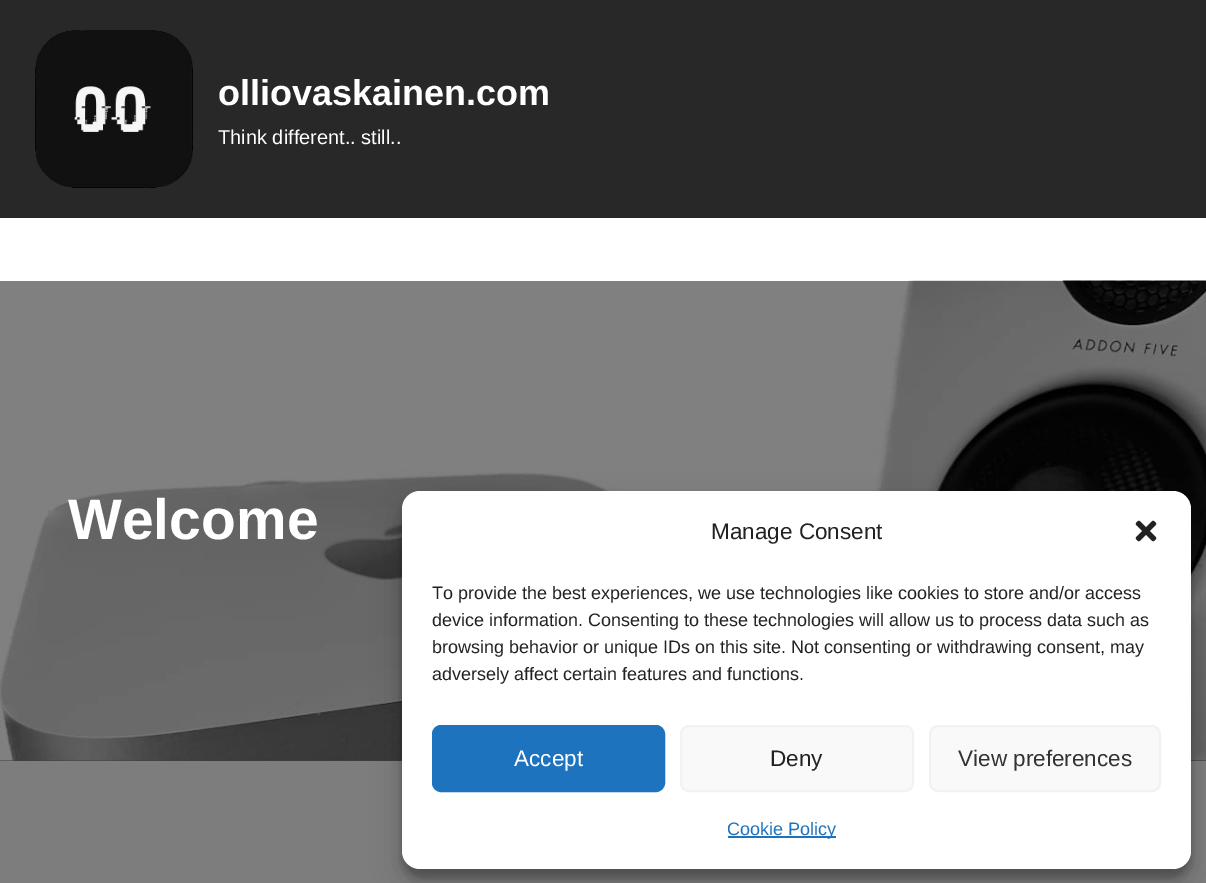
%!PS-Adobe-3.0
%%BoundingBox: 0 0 1206 883
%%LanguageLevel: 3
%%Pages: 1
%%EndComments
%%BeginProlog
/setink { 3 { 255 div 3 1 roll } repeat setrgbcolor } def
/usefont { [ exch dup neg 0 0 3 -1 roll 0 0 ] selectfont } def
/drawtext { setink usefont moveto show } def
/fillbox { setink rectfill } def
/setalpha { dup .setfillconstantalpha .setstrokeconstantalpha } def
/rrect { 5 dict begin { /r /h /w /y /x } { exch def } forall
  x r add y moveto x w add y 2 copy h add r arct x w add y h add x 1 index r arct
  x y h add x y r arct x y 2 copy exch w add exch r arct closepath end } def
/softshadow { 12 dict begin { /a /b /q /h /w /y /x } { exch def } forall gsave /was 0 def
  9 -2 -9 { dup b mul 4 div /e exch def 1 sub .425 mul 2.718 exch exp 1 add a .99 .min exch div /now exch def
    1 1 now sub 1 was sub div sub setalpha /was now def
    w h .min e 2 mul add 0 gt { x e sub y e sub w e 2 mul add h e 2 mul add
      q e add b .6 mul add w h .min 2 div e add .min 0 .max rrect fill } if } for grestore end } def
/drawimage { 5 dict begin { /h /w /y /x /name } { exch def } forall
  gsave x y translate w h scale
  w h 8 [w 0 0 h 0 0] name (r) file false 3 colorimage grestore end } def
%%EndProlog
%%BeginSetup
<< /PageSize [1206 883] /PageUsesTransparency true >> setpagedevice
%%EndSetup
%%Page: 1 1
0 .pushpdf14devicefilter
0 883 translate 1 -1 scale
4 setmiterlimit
0 0 1206 883 125 125 125 fillbox
0 760 1206 1 63 63 63 fillbox
0 0 1206 218 40 40 40 fillbox
(assets/img1.rgb) 35 30 158 158 drawimage
(olliovaskainen.com) 218 105 /LiberationSans-Bold 36 255 255 255 drawtext
(Think different.. still..) 218 144 /LiberationSans-Regular 20 255 255 255 drawtext
0 218 1206 63 255 255 255 fillbox
(assets/img2.rgb) 0 280 1206 481 drawimage
(Welcome) 68 539 /LiberationSans-Bold 57 255 255 255 drawtext
0 0 0 setink
402 500 789 378 18 4.5 0.23 softshadow
402 506 789 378 18 15 0.19 softshadow
255 255 255 setink
402 491 789 378 18 rrect fill
(Manage Consent) 711 539 /LiberationSans-Regular 22.5 34 34 34 drawtext
(assets/img3.rgb) 1135 520 22 22 drawimage
(To provide the best experiences, we use technologies like cookies to store and/or access) 432 599 /LiberationSans-Regular 18 34 34 34 drawtext
(device information. Consenting to these technologies will allow us to process data such as) 432 626 /LiberationSans-Regular 18 34 34 34 drawtext
(browsing behavior or unique IDs on this site. Not consenting or withdrawing consent, may) 432 653 /LiberationSans-Regular 18 34 34 34 drawtext
(adversely affect certain features and functions.) 432 680 /LiberationSans-Regular 18 34 34 34 drawtext
30 115 190 setink
433 726 231 65 8 rrect gsave fill grestore
2 setlinewidth
stroke
(Accept) 514 766 /LiberationSans-Regular 22.5 255 255 255 drawtext
249 249 249 setink
681 726 232 65 8 rrect gsave fill grestore
242 242 242 setink
stroke
(Deny) 770 766 /LiberationSans-Regular 22.5 34 34 34 drawtext
249 249 249 setink
930 726 230 65 8 rrect gsave fill grestore
242 242 242 setink
stroke
(View preferences) 958 766 /LiberationSans-Regular 22.5 51 51 51 drawtext
728 836 108 2 30 115 190 fillbox
(Cookie Policy) 727 835 /LiberationSans-Regular 18 30 115 190 drawtext
.poppdf14devicefilter showpage
%%EOF
